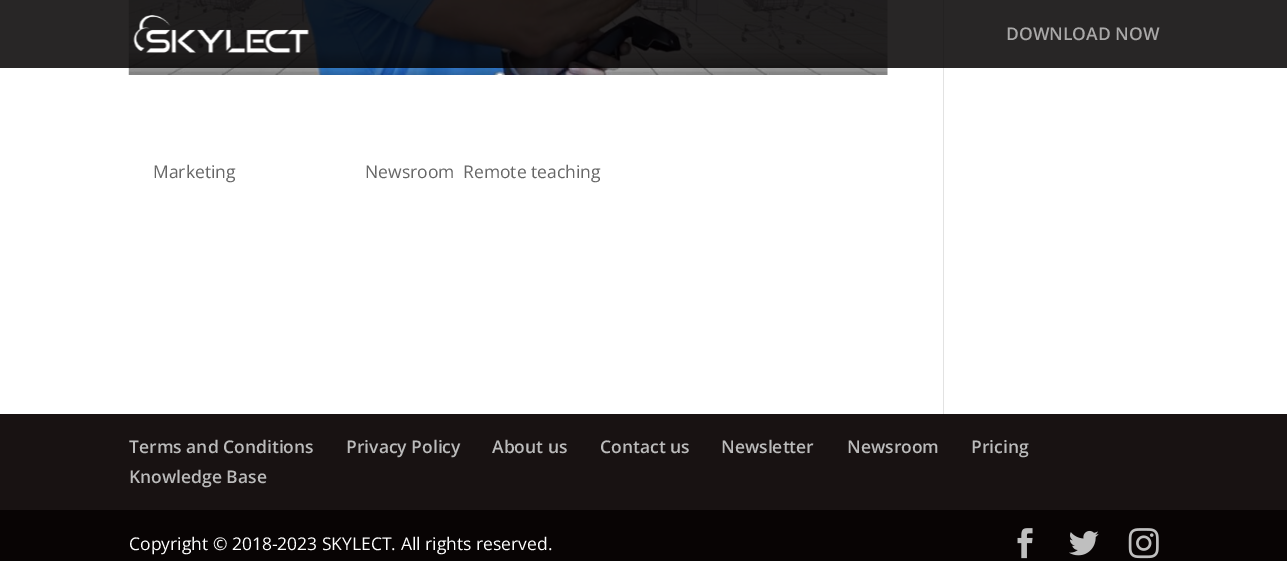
%!PS-Adobe-3.0
%%BoundingBox: 0 0 1287 561
%%LanguageLevel: 3
%%Pages: 1
%%EndComments
%%BeginProlog
/setink { 3 { 255 div 3 1 roll } repeat setrgbcolor } def
/usefont { [ exch dup neg 0 0 3 -1 roll 0 0 ] selectfont } def
/drawtext { setink usefont moveto show } def
/fillbox { setink rectfill } def
/drawimage { 5 dict begin { /h /w /y /x /name } { exch def } forall
  gsave x y translate w h scale
  w h 8 [w 0 0 h 0 0] name (r) file false 3 colorimage grestore end } def
%%EndProlog
%%BeginSetup
<< /PageSize [1287 561] >> setpagedevice
%%EndSetup
%%Page: 1 1
0 561 translate 1 -1 scale
4 setmiterlimit
0 0 1287 561 255 255 255 fillbox
0 0 1287 68 40 38 38 fillbox
(assets/img2.rgb) 128 0 760 75 drawimage
(assets/img1.rgb) 133 15 176 38 drawimage
(DOWNLOAD NOW) 1006 40 /OpenSans-SemiBold 17.5 169 168 168 drawtext
(Marketing) 153 178 /OpenSans-Regular 17.5 102 102 102 drawtext
(Newsroom) 365 178 /OpenSans-Regular 17.5 102 102 102 drawtext
(Remote teaching) 463 178 /OpenSans-Regular 17.5 102 102 102 drawtext
943 68 1 346 226 226 226 fillbox
943 0 1 68 36 34 34 fillbox
0 414 1287 96 24 18 18 fillbox
(Terms and Conditions) 129 453 /OpenSans-SemiBold 17.5 187 187 187 drawtext
(Privacy Policy) 346 453 /OpenSans-SemiBold 17.5 187 187 187 drawtext
(About us) 492 453 /OpenSans-SemiBold 17.5 187 187 187 drawtext
(Contact us) 600 453 /OpenSans-SemiBold 17.5 187 187 187 drawtext
(Newsletter) 721 453 /OpenSans-SemiBold 17.5 187 187 187 drawtext
(Newsroom) 847 453 /OpenSans-SemiBold 17.5 187 187 187 drawtext
(Pricing) 971 453 /OpenSans-SemiBold 17.5 187 187 187 drawtext
(Knowledge Base) 129 483 /OpenSans-SemiBold 17.5 187 187 187 drawtext
0 510 1287 51 8 4 4 fillbox
(Copyright © 2018-2023 SKYLECT. All rights reserved.) 129 550 /OpenSans-Regular 17.5 255 255 255 drawtext
(assets/img3.rgb) 1017 528 16 31 drawimage
(assets/img4.rgb) 1069 530 30 26 drawimage
(assets/img5.rgb) 1128 528 31 31 drawimage
showpage
%%EOF
